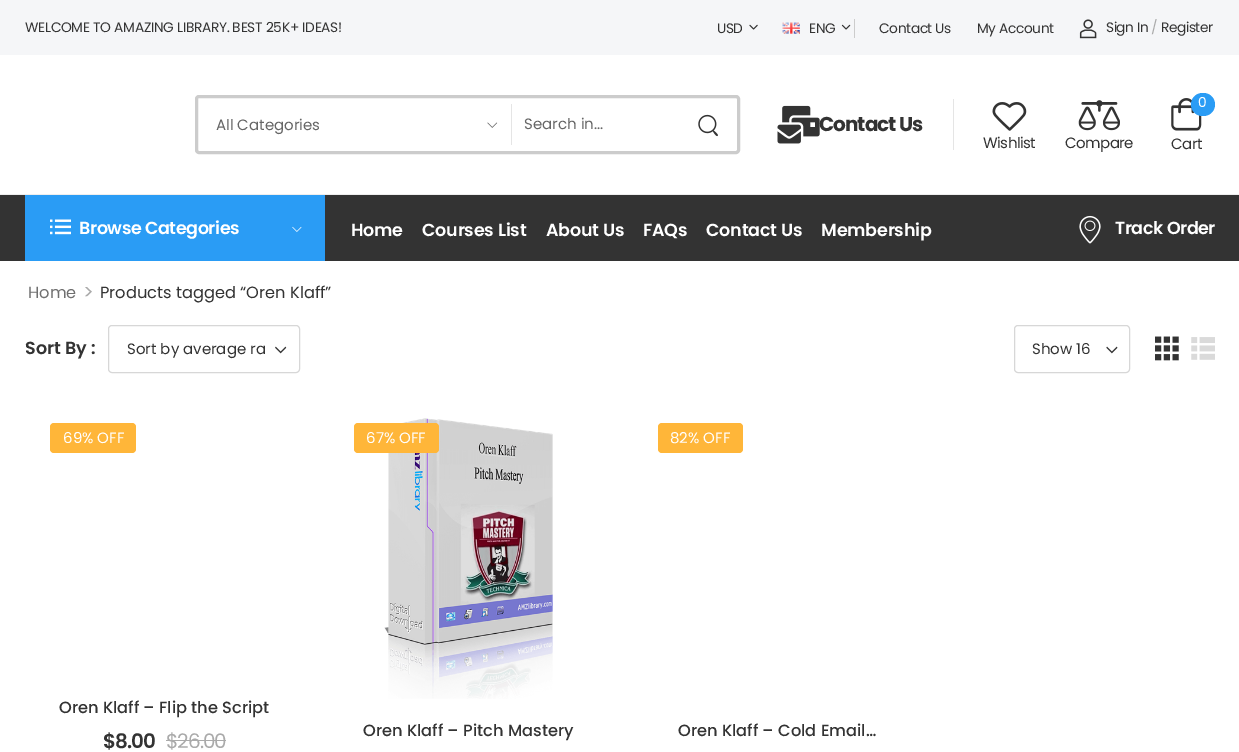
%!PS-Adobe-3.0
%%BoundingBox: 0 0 1239 752
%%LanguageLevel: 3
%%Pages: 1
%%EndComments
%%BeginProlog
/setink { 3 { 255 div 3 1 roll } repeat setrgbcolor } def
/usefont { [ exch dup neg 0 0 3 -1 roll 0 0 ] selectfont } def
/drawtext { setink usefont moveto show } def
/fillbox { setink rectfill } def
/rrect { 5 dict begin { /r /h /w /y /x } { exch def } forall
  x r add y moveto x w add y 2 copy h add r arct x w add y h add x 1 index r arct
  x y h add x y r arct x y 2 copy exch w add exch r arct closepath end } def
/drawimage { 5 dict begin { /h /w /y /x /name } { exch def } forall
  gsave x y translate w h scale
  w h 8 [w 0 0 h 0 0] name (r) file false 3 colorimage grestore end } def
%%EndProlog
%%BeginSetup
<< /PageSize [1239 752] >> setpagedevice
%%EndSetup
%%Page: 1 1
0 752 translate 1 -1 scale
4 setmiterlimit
0 0 1239 752 255 255 255 fillbox
0 0 1239 55 245 246 248 fillbox
/Poppins-Regular 13.75 usefont
51 51 51 setink
25 32 moveto -0.3 0 (WELCOME TO AMAZING LIBRARY. BEST 25K+ IDEAS!) ashow
717 33 moveto -0.5 0 (USD) ashow
(assets/img1.rgb) 749 24 9 6 drawimage
(assets/img2.rgb) 782 22 18 12 drawimage
809 33 moveto -0.5 0 (ENG) ashow
(assets/img3.rgb) 841 24 10 6 drawimage
854 19 1 19 204 204 204 fillbox
51 51 51 setink
879 33 moveto -0.4 0 (Contact Us) ashow
977 33 moveto -0.4 0 (My Account) ashow
(assets/img4.rgb) 1079 19 18 20 drawimage
1106 32 moveto -0.5 0 (Sign In) ashow
170 170 170 setink
1151 32 moveto -0.5 0 (/) ashow
51 51 51 setink
1161 32 moveto -0.5 0 (Register) ashow
0 194 1239 1 238 238 238 fillbox
204 204 204 setink
3 setlinewidth
196.5 96.5 542 56 2.5 rrect stroke
(All Categories) 216 130 /Poppins-Regular 15 102 102 102 drawtext
(assets/img5.rgb) 487 122 11 6 drawimage
511 104 1 41 229 229 229 fillbox
(Search in...) 524 129 /Poppins-Regular 15 102 102 102 drawtext
(assets/img6.rgb) 698 114 20 23 drawimage
(assets/img7.rgb) 777 105 43 39 drawimage
/Poppins-Bold 20 usefont
51 51 51 setink
819 131 moveto -1 0 (Contact Us) ashow
953 99 1 51 229 229 229 fillbox
(assets/img8.rgb) 1171 98 31 33 drawimage
42 156 245 setink
1191 93 24 23 11.5 rrect fill
/Poppins-Regular 13.75 usefont
255 255 255 setink
1198 107 moveto -0.5 0 (0) ashow
/Poppins-Regular 15 usefont
51 51 51 setink
1171 149 moveto -0.5 0 (Cart) ashow
(assets/img9.rgb) 992 102 35 29 drawimage
983 148 moveto -0.5 0 (Wishlist) ashow
(assets/img10.rgb) 1078 100 42 31 drawimage
1065 148 moveto -0.5 0 (Compare) ashow
0 195 1239 66 51 51 51 fillbox
25 195 300 66 42 156 245 fillbox
(assets/img11.rgb) 50 219 21 16 drawimage
/Poppins-SemiBold 17.5 usefont
255 255 255 setink
79 234 moveto -0.4 0 (Browse Categories) ashow
(assets/img12.rgb) 292 226 10 6 drawimage
351 236 moveto -0.2 0 (Home) ashow
422 236 moveto -0.2 0 (Courses List) ashow
546 236 moveto -0.2 0 (About Us) ashow
643 236 moveto -0.2 0 (FAQs) ashow
706 236 moveto -0.2 0 (Contact Us) ashow
821 236 moveto -0.2 0 (Membership) ashow
(assets/img13.rgb) 1079 215 22 29 drawimage
1115 234 moveto -0.4 0 (Track Order) ashow
(Home) 28 298 /Poppins-Regular 16.25 112 112 112 drawtext
(>) 83 299 /Poppins-Regular 20 170 170 170 drawtext
(Products tagged “Oren Klaff”) 100 298 /Poppins-Regular 16.25 51 51 51 drawtext
(Sort By :) 25 354 /Poppins-SemiBold 17.5 51 51 51 drawtext
(assets/img14.rgb) 275 346 12 8 drawimage
215 215 215 setink
1 setlinewidth
108.5 325.5 191 47 3.5 rrect stroke
(Sort by average ra) 127 354 /Poppins-Regular 15 51 51 51 drawtext
(assets/img15.rgb) 1106 346 12 8 drawimage
215 215 215 setink
1014.5 325.5 115 47 3.5 rrect stroke
(Show 16) 1032 354 /Poppins-Regular 15 51 51 51 drawtext
(assets/img16.rgb) 1155 336 24 25 drawimage
(assets/img17.rgb) 1191 337 24 23 drawimage
255 182 57 setink
50 423 86 30 4 rrect fill
(69% OFF) 63 443 /Poppins-Regular 15 255 255 255 drawtext
(Oren Klaff – Flip the Script) 59 713 /Poppins-Medium 16.25 51 51 51 drawtext
/Poppins-SemiBold 20 usefont
103 748 moveto -1 0 ($8.00) ashow
/Poppins-Regular 20 usefont
170 170 170 setink
166 748 moveto -1 0 ($26.00) ashow
166 740 60 1 170 170 170 fillbox
(assets/img18.rgb) 384 418 169 281 drawimage
255 182 57 setink
354 423 85 30 4 rrect fill
(67% OFF) 366 443 /Poppins-Regular 15 255 255 255 drawtext
(Oren Klaff – Pitch Mastery) 363 736 /Poppins-Medium 16.25 51 51 51 drawtext
255 182 57 setink
658 423 85 30 4 rrect fill
(82% OFF) 670 443 /Poppins-Regular 15 255 255 255 drawtext
(Oren Klaff – Cold Email…) 678 736 /Poppins-Medium 16.25 51 51 51 drawtext
showpage
%%EOF
